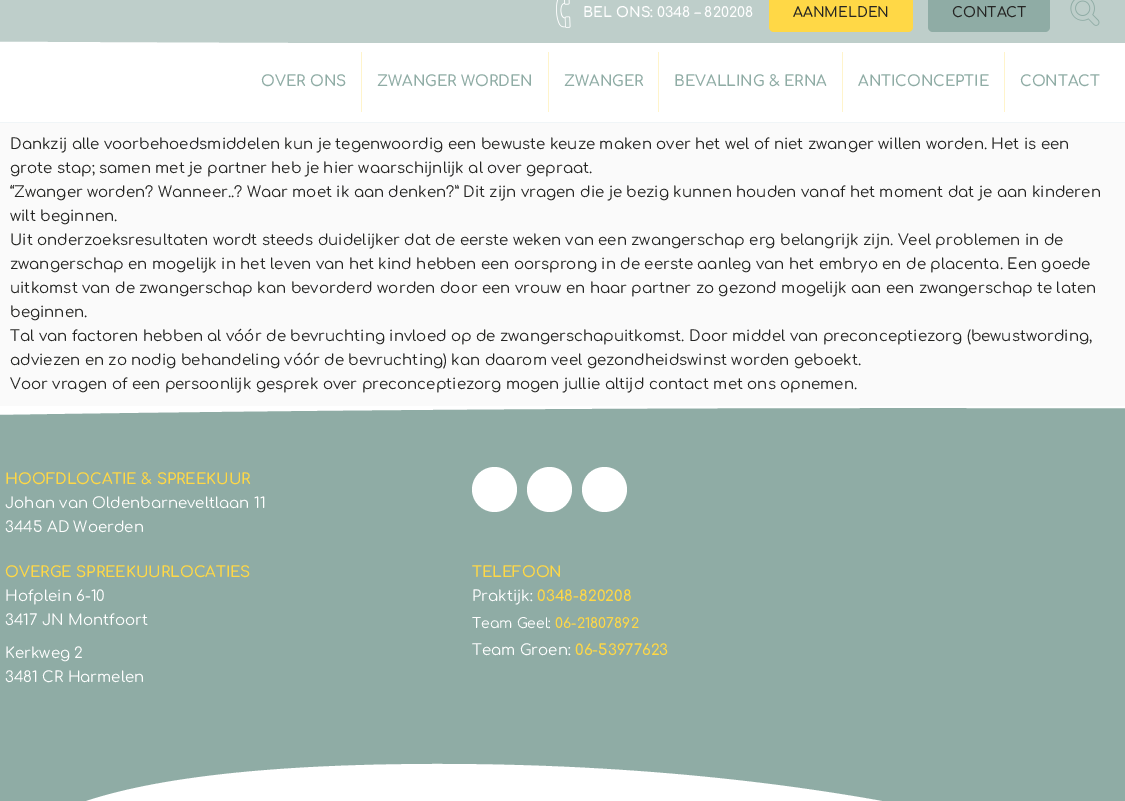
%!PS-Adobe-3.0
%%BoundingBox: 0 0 1125 801
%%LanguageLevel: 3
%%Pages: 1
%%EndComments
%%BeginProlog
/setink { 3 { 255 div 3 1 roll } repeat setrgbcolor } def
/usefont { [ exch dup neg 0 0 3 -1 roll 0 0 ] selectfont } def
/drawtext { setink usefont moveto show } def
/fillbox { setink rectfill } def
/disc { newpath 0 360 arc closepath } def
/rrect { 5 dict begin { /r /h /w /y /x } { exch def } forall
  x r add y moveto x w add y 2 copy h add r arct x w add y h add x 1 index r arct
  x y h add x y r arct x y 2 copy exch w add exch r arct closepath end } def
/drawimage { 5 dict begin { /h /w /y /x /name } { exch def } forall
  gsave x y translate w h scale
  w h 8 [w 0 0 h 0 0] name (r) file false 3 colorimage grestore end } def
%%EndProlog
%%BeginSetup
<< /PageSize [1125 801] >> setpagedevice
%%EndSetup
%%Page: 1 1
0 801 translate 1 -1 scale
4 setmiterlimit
0 0 1125 801 250 250 250 fillbox
0 0 1125 43 190 206 202 fillbox
(assets/img1.rgb) 556 0 15 28 drawimage
(BEL ONS:) 583 17 /Comfortaa-Bold 14 255 255 255 drawtext
(0348 – 820208) 657 17 /Comfortaa-SemiBold 14 255 255 255 drawtext
255 216 70 setink
769 -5 144 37 5 rrect fill
(AANMELDEN) 793 17 /Comfortaa-SemiBold 14 37 37 35 drawtext
143 172 165 setink
928 -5 122 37 5 rrect fill
(CONTACT) 952 17 /Comfortaa-SemiBold 14 37 37 35 drawtext
(assets/img2.rgb) 1070 0 30 26 drawimage
gsave
0 33 1125 10 rectclip
255 255 255 setink
887 44 moveto -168 44 -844 35 -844 33 curveto -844 44 lineto 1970 44 lineto 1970 33 lineto 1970 35 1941 44 887 44 curveto closepath fill
grestore
0 43 1125 79 255 255 255 fillbox
0 122 1125 1 240 245 247 fillbox
(OVER ONS) 261 86 /Comfortaa-SemiBold 15 143 172 165 drawtext
361 52 1 60 255 244 203 fillbox
(ZWANGER WORDEN) 377 86 /Comfortaa-SemiBold 15 143 172 165 drawtext
548 52 1 60 255 244 203 fillbox
(ZWANGER) 564 86 /Comfortaa-SemiBold 15 143 172 165 drawtext
658 52 1 60 255 244 203 fillbox
(BEVALLING & ERNA) 674 86 /Comfortaa-SemiBold 15 143 172 165 drawtext
842 52 1 60 255 244 203 fillbox
(ANTICONCEPTIE) 858 86 /Comfortaa-SemiBold 15 143 172 165 drawtext
1004 52 1 60 255 244 203 fillbox
(CONTACT) 1020 86 /Comfortaa-SemiBold 15 143 172 165 drawtext
(Dankzij alle voorbehoedsmiddelen kun je tegenwoordig een bewuste keuze maken over het wel of niet zwanger willen worden. Het is een) 10 149 /Comfortaa-Regular 15 37 37 35 drawtext
(grote stap; samen met je partner heb je hier waarschijnlijk al over gepraat.) 10 173 /Comfortaa-Regular 15 37 37 35 drawtext
(“Zwanger worden? Wanneer..? Waar moet ik aan denken?” Dit zijn vragen die je bezig kunnen houden vanaf het moment dat je aan kinderen) 10 197 /Comfortaa-Regular 15 37 37 35 drawtext
(wilt beginnen.) 10 221 /Comfortaa-Regular 15 37 37 35 drawtext
(Uit onderzoeksresultaten wordt steeds duidelijker dat de eerste weken van een zwangerschap erg belangrijk zijn. Veel problemen in de) 10 245 /Comfortaa-Regular 15 37 37 35 drawtext
(zwangerschap en mogelijk in het leven van het kind hebben een oorsprong in de eerste aanleg van het embryo en de placenta. Een goede) 10 269 /Comfortaa-Regular 15 37 37 35 drawtext
(uitkomst van de zwangerschap kan bevorderd worden door een vrouw en haar partner zo gezond mogelijk aan een zwangerschap te laten) 10 293 /Comfortaa-Regular 15 37 37 35 drawtext
(beginnen.) 10 317 /Comfortaa-Regular 15 37 37 35 drawtext
(Tal van factoren hebben al vóór de bevruchting invloed op de zwangerschapuitkomst. Door middel van preconceptiezorg \(bewustwording,) 10 341 /Comfortaa-Regular 15 37 37 35 drawtext
(adviezen en zo nodig behandeling vóór de bevruchting\) kan daarom veel gezondheidswinst worden geboekt.) 10 365 /Comfortaa-Regular 15 37 37 35 drawtext
(Voor vragen of een persoonlijk gesprek over preconceptiezorg mogen jullie altijd contact met ons opnemen.) 10 389 /Comfortaa-Regular 15 37 37 35 drawtext
0 408 1125 393 143 172 165 fillbox
255 255 255 setink
952 408 moveto -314 407 -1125 444 -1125 453 curveto -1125 406 lineto 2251 406 lineto 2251 453 lineto 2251 444 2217 408 952 408 curveto closepath fill
(HOOFDLOCATIE & SPREEKUUR) 5 484 /Comfortaa-SemiBold 15 255 216 70 drawtext
(Johan van Oldenbarneveltlaan 11) 5 508 /Comfortaa-Regular 15 255 255 255 drawtext
(3445 AD Woerden) 5 532 /Comfortaa-Regular 15 255 255 255 drawtext
(OVERGE SPREEKUURLOCATIES) 5 577 /Comfortaa-SemiBold 15 255 216 70 drawtext
(Hofplein 6-10) 5 601 /Comfortaa-Regular 15 255 255 255 drawtext
(3417 JN Montfoort) 5 625 /Comfortaa-Regular 15 255 255 255 drawtext
(Kerkweg 2) 5 658 /Comfortaa-Regular 15 255 255 255 drawtext
(3481 CR Harmelen) 5 682 /Comfortaa-Regular 15 255 255 255 drawtext
494.5 489.5 22.5 disc fill
549.5 489.5 22.5 disc fill
604.5 489.5 22.5 disc fill
(TELEFOON) 472 577 /Comfortaa-SemiBold 15 255 216 70 drawtext
(Praktijk:) 472 601 /Comfortaa-Regular 15 255 255 255 drawtext
(0348-820208) 537 601 /Comfortaa-SemiBold 15 255 216 70 drawtext
(Team Geel:) 472 628 /Comfortaa-Regular 14 255 255 255 drawtext
(06-21807892) 555 628 /Comfortaa-SemiBold 14 255 216 70 drawtext
(Team Groen:) 472 655 /Comfortaa-Regular 15 255 255 255 drawtext
(06-53977623) 575 655 /Comfortaa-SemiBold 15 255 216 70 drawtext
255 255 255 setink
1125 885 moveto 1125 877 lineto 1125 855 855 763 432 764 curveto 10 765 -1 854 -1 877 curveto -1 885 lineto closepath fill
showpage
%%EOF
